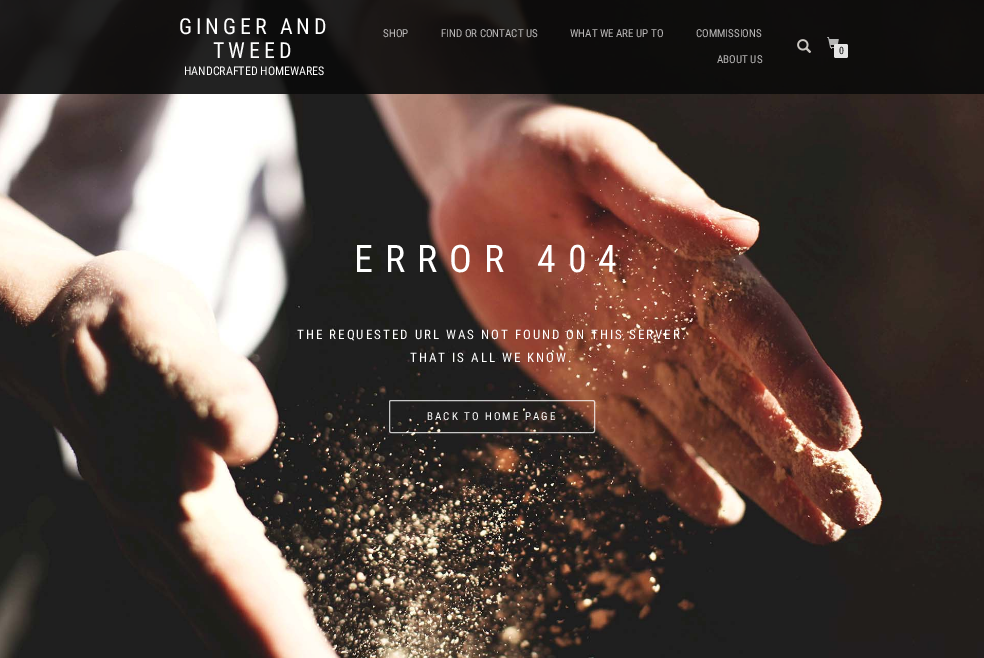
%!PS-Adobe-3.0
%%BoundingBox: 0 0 984 658
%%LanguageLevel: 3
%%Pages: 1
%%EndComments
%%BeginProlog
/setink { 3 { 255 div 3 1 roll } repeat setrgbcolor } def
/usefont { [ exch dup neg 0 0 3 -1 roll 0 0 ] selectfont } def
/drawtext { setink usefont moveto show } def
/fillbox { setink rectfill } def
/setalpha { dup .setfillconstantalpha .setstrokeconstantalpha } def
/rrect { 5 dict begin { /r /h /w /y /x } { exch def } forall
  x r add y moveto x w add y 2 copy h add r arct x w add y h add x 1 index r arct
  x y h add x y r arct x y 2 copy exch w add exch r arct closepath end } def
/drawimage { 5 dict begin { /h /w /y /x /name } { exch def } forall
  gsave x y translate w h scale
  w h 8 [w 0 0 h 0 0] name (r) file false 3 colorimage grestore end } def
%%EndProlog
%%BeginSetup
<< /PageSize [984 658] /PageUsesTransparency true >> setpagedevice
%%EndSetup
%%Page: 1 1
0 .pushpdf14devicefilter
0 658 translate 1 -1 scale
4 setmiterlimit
0 0 984 658 255 255 255 fillbox
(assets/img3.rgb) 0 0 984 658 drawimage
0.9 setalpha
0 0 984 94 10 10 10 fillbox
/RobotoCondensed-Regular 22 usefont
1 setalpha
255 255 255 setink
179 34 moveto 4 0 (GINGER AND) ashow
213 58 moveto 4 0 (TWEED) ashow
(HANDCRAFTED HOMEWARES) 184 75 /RobotoCondensed-Regular 12 255 255 255 drawtext
(SHOP) 383 37 /RobotoCondensed-Regular 11 187 185 185 drawtext
(FIND OR CONTACT US) 441 37 /RobotoCondensed-Regular 11 187 185 185 drawtext
(WHAT WE ARE UP TO) 570 37 /RobotoCondensed-Regular 11 187 185 185 drawtext
(COMMISSIONS) 696 37 /RobotoCondensed-Regular 11 187 185 185 drawtext
(ABOUT US) 717 63 /RobotoCondensed-Regular 11 187 185 185 drawtext
(assets/img1.rgb) 797 39 15 14 drawimage
(assets/img2.rgb) 827 37 12 12 drawimage
229 229 229 setink
834 44 14 14 2 rrect fill
(0) 839 54 /RobotoCondensed-Regular 10 17 17 17 drawtext
/RobotoCondensed-Regular 38 usefont
255 255 255 setink
354 272 moveto 12 0 (ERROR 404) ashow
/RobotoCondensed-Regular 13 usefont
297 339 moveto 2 0 (THE REQUESTED URL WAS NOT FOUND ON THIS SERVER.) ashow
410 362 moveto 2 0 (THAT IS ALL WE KNOW.) ashow
0.75 setalpha
389.5 400.5 205 32 1.5 rrect stroke
/RobotoCondensed-Regular 11 usefont
1 setalpha
427 420 moveto 2 0 (BACK TO HOME PAGE) ashow
.poppdf14devicefilter showpage
%%EOF
